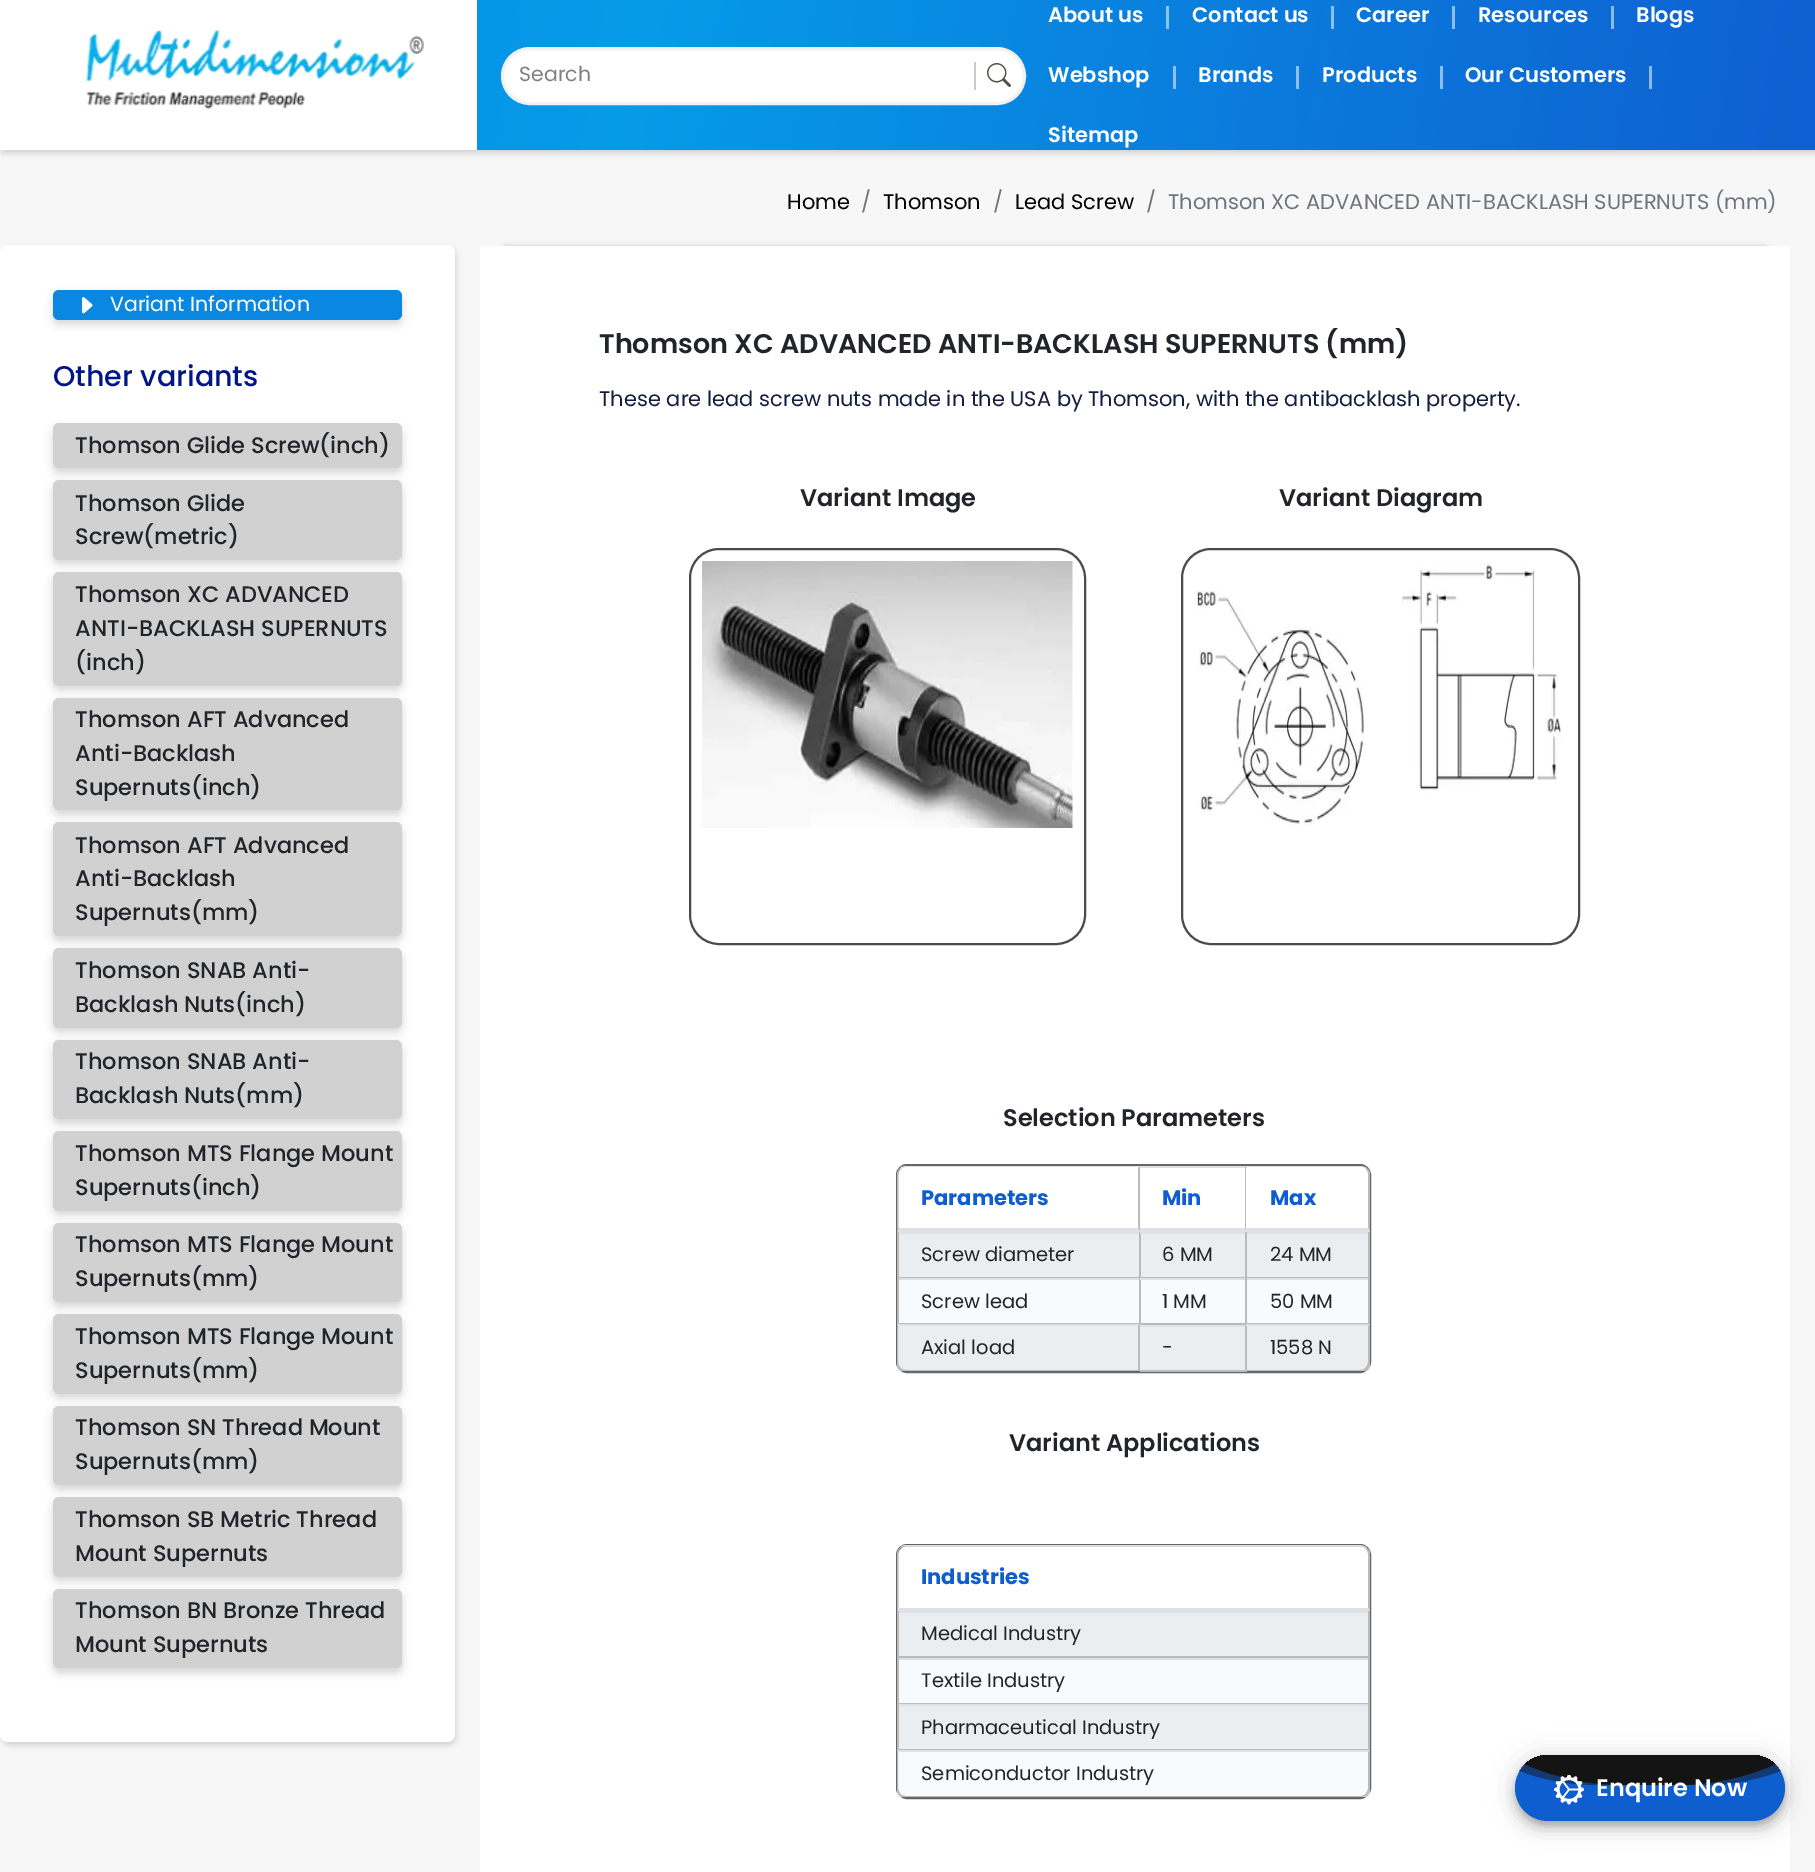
%!PS-Adobe-3.0
%%BoundingBox: 0 0 1815 1872
%%LanguageLevel: 3
%%Pages: 1
%%EndComments
%%BeginProlog
/setink { 3 { 255 div 3 1 roll } repeat setrgbcolor } def
/usefont { [ exch dup neg 0 0 3 -1 roll 0 0 ] selectfont } def
/drawtext { setink usefont moveto show } def
/fillbox { setink rectfill } def
/setalpha { dup .setfillconstantalpha .setstrokeconstantalpha } def
/rrect { 5 dict begin { /r /h /w /y /x } { exch def } forall
  x r add y moveto x w add y 2 copy h add r arct x w add y h add x 1 index r arct
  x y h add x y r arct x y 2 copy exch w add exch r arct closepath end } def
/softshadow { 12 dict begin { /a /b /q /h /w /y /x } { exch def } forall gsave /was 0 def
  9 -2 -9 { dup b mul 4 div /e exch def 1 sub .425 mul 2.718 exch exp 1 add a .99 .min exch div /now exch def
    1 1 now sub 1 was sub div sub setalpha /was now def
    w h .min e 2 mul add 0 gt { x e sub y e sub w e 2 mul add h e 2 mul add
      q e add b .6 mul add w h .min 2 div e add .min 0 .max rrect fill } if } for grestore end } def
/drawimage { 5 dict begin { /h /w /y /x /name } { exch def } forall
  gsave x y translate w h scale
  w h 8 [w 0 0 h 0 0] name (r) file false 3 colorimage grestore end } def
%%EndProlog
%%BeginSetup
<< /PageSize [1815 1872] /PageUsesTransparency true >> setpagedevice
%%EndSetup
%%Page: 1 1
0 .pushpdf14devicefilter
0 1872 translate 1 -1 scale
4 setmiterlimit
0 0 1815 1872 247 247 247 fillbox
0 0 0 setink
2 3 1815 150 0 3 0.16 softshadow
0 0 477 150 255 255 255 fillbox
(assets/img1.rgb) 86 29 338 80 drawimage
gsave 477 0 moveto 1815 0 lineto 1815 150 lineto 477 150 lineto closepath clip newpath
<< /ShadingType 2 /ColorSpace /DeviceRGB /Coords [-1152 -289 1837 184] /Extend [true true] /Function << /FunctionType 3 /Domain [0 1] /Functions [<< /FunctionType 2 /Domain [0 1] /C0 [0.059 0.369 0.816] /C1 [0.024 0.608 0.914] /N 1 >> << /FunctionType 2 /Domain [0 1] /C0 [0.024 0.608 0.914] /C1 [0.059 0.369 0.816] /N 1 >>] /Bounds [0.6] /Encode [0 1 0 1] >> >> shfill grestore
502.5 48.5 522 55 27.5 rrect gsave fill grestore
241 241 241 setink
3 setlinewidth
stroke
(Search) 519 81 /Poppins-Regular 20.5 128 128 128 drawtext
974 62 2 28 204 204 204 fillbox
(assets/img2.rgb) 987 63 24 24 drawimage
(About us) 1048 22 /Poppins-SemiBold 21 255 255 255 drawtext
1166 6 3 23 140 196 239 fillbox
(Contact us) 1192 22 /Poppins-SemiBold 21 255 255 255 drawtext
1331 6 3 23 140 192 238 fillbox
(Career) 1356 22 /Poppins-SemiBold 21 255 255 255 drawtext
1452 6 3 23 141 189 237 fillbox
(Resources) 1478 22 /Poppins-SemiBold 21 255 255 255 drawtext
1611 6 3 23 141 185 235 fillbox
(Blogs) 1636 22 /Poppins-SemiBold 21 255 255 255 drawtext
(Webshop) 1048 82 /Poppins-SemiBold 21 255 255 255 drawtext
1173 66 3 23 140 195 239 fillbox
(Brands) 1198 82 /Poppins-SemiBold 21 255 255 255 drawtext
1296 66 3 23 140 192 238 fillbox
(Products) 1322 82 /Poppins-SemiBold 21 255 255 255 drawtext
1440 66 3 23 141 189 237 fillbox
(Our Customers) 1465 82 /Poppins-SemiBold 21 255 255 255 drawtext
1649 66 3 23 142 184 235 fillbox
(Sitemap) 1048 142 /Poppins-SemiBold 21 255 255 255 drawtext
(Home) 787 209 /Poppins-Regular 21 0 0 0 drawtext
(/) 861 209 /Poppins-Regular 21 108 117 125 drawtext
(Thomson) 883 209 /Poppins-Regular 21 0 0 0 drawtext
(/) 993 209 /Poppins-Regular 21 108 117 125 drawtext
(Lead Screw) 1015 209 /Poppins-Regular 21 0 0 0 drawtext
(/) 1146 209 /Poppins-Regular 21 108 117 125 drawtext
(Thomson XC ADVANCED ANTI-BACKLASH SUPERNUTS \(mm\)) 1168 209 /Poppins-Regular 21 108 117 125 drawtext
0 0 0 setink
2 248 454 1497 8 3 0.16 softshadow
255 255 255 setink
0 245 455 1497 8 rrect fill
0 0 0 setink
53 294 349 30 6 4.5 0.16 softshadow
9 135 225 setink
53 290 349 30 6 rrect fill
(assets/img3.rgb) 82 297 11 17 drawimage
(Variant Information) 110 311 /Poppins-Regular 20.5 255 255 255 drawtext
(Other variants) 53 386 /Poppins-Medium 28.5 0 22 136 drawtext
0 0 0 setink
53 428 349 45 6 4.5 0.16 softshadow
209 209 209 setink
53 423 349 45 6 rrect fill
(Thomson Glide Screw\(inch\)) 75 453 /Poppins-Medium 22.5 33 37 41 drawtext
0 0 0 setink
53 485 349 79 6 4.5 0.16 softshadow
209 209 209 setink
53 480 349 80 6 rrect fill
(Thomson Glide) 75 511 /Poppins-Medium 22.5 33 37 41 drawtext
(Screw\(metric\)) 75 544 /Poppins-Medium 22.5 33 37 41 drawtext
0 0 0 setink
53 576 349 114 6 4.5 0.16 softshadow
209 209 209 setink
53 572 349 114 6 rrect fill
(Thomson XC ADVANCED) 75 602 /Poppins-Medium 22.5 33 37 41 drawtext
(ANTI-BACKLASH SUPERNUTS) 75 636 /Poppins-Medium 22.5 33 37 41 drawtext
(\(inch\)) 75 670 /Poppins-Medium 22.5 33 37 41 drawtext
0 0 0 setink
53 702 349 113 6 4.5 0.16 softshadow
209 209 209 setink
53 698 349 112 6 rrect fill
(Thomson AFT Advanced) 75 727 /Poppins-Medium 22.5 33 37 41 drawtext
(Anti-Backlash) 75 761 /Poppins-Medium 22.5 33 37 41 drawtext
(Supernuts\(inch\)) 75 795 /Poppins-Medium 22.5 33 37 41 drawtext
0 0 0 setink
53 827 349 114 6 4.5 0.16 softshadow
209 209 209 setink
53 822 349 114 6 rrect fill
(Thomson AFT Advanced) 75 853 /Poppins-Medium 22.5 33 37 41 drawtext
(Anti-Backlash) 75 886 /Poppins-Medium 22.5 33 37 41 drawtext
(Supernuts\(mm\)) 75 920 /Poppins-Medium 22.5 33 37 41 drawtext
0 0 0 setink
53 953 349 79 6 4.5 0.16 softshadow
209 209 209 setink
53 948 349 80 6 rrect fill
(Thomson SNAB Anti-) 75 978 /Poppins-Medium 22.5 33 37 41 drawtext
(Backlash Nuts\(inch\)) 75 1012 /Poppins-Medium 22.5 33 37 41 drawtext
0 0 0 setink
53 1044 349 80 6 4.5 0.16 softshadow
209 209 209 setink
53 1040 349 79 6 rrect fill
(Thomson SNAB Anti-) 75 1069 /Poppins-Medium 22.5 33 37 41 drawtext
(Backlash Nuts\(mm\)) 75 1103 /Poppins-Medium 22.5 33 37 41 drawtext
0 0 0 setink
53 1136 349 79 6 4.5 0.16 softshadow
209 209 209 setink
53 1131 349 80 6 rrect fill
(Thomson MTS Flange Mount) 75 1161 /Poppins-Medium 22.5 33 37 41 drawtext
(Supernuts\(inch\)) 75 1195 /Poppins-Medium 22.5 33 37 41 drawtext
0 0 0 setink
53 1227 349 80 6 4.5 0.16 softshadow
209 209 209 setink
53 1223 349 79 6 rrect fill
(Thomson MTS Flange Mount) 75 1252 /Poppins-Medium 22.5 33 37 41 drawtext
(Supernuts\(mm\)) 75 1286 /Poppins-Medium 22.5 33 37 41 drawtext
0 0 0 setink
53 1319 349 79 6 4.5 0.16 softshadow
209 209 209 setink
53 1314 349 80 6 rrect fill
(Thomson MTS Flange Mount) 75 1344 /Poppins-Medium 22.5 33 37 41 drawtext
(Supernuts\(mm\)) 75 1378 /Poppins-Medium 22.5 33 37 41 drawtext
0 0 0 setink
53 1410 349 80 6 4.5 0.16 softshadow
209 209 209 setink
53 1406 349 79 6 rrect fill
(Thomson SN Thread Mount) 75 1435 /Poppins-Medium 22.5 33 37 41 drawtext
(Supernuts\(mm\)) 75 1469 /Poppins-Medium 22.5 33 37 41 drawtext
0 0 0 setink
53 1502 349 79 6 4.5 0.16 softshadow
209 209 209 setink
53 1497 349 80 6 rrect fill
(Thomson SB Metric Thread) 75 1527 /Poppins-Medium 22.5 33 37 41 drawtext
(Mount Supernuts) 75 1561 /Poppins-Medium 22.5 33 37 41 drawtext
0 0 0 setink
53 1593 349 80 6 4.5 0.16 softshadow
209 209 209 setink
53 1589 349 79 6 rrect fill
(Thomson BN Bronze Thread) 75 1618 /Poppins-Medium 22.5 33 37 41 drawtext
(Mount Supernuts) 75 1652 /Poppins-Medium 22.5 33 37 41 drawtext
0 0 0 setink
501 246 1268 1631 6 3 0.16 softshadow
255 255 255 setink
501 245 1268 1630 6 rrect fill
0.12 setalpha
0 0 0 setink
2 setlinewidth
502 246 1266 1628 5 rrect stroke
1 setalpha
480 246 1310 1626 255 255 255 fillbox
(Thomson XC ADVANCED ANTI-BACKLASH SUPERNUTS \(mm\)) 599 353 /Poppins-SemiBold 27 33 37 41 drawtext
(These are lead screw nuts made in the USA by Thomson, with the antibacklash property.) 599 406 /Poppins-Regular 21 21 29 65 drawtext
(Variant Image) 800 506 /Poppins-SemiBold 24 33 37 41 drawtext
75 75 75 setink
690 549 395 395 29 rrect stroke
(assets/img4.rgb) 702 561 371 267 drawimage
(Variant Diagram) 1279 506 /Poppins-SemiBold 24 33 37 41 drawtext
75 75 75 setink
1182 549 397 395 29 rrect stroke
(assets/img5.rgb) 1194 561 368 265 drawimage
(Selection Parameters) 1003 1126 /Poppins-SemiBold 24 33 37 41 drawtext
102 102 102 setink
897 1165 473 207 10 rrect stroke
222 226 230 setink
906 1166 moveto 904 1166 901 1167 900 1168 curveto 900 1169 lineto 902 1168 904 1167 906 1167 curveto 1138 1167 lineto 1138 1168 lineto 1140 1166 lineto closepath fill
187 187 187 setink
1140 1232 moveto 1140 1166 lineto 1138 1168 lineto 1138 1228 lineto closepath fill
222 226 230 setink
1140 1232 moveto 897 1232 lineto 899 1228 lineto 1138 1228 lineto closepath fill
187 187 187 setink
897 1232 moveto 899 1228 lineto 898 1228 lineto 898 1174 lineto 898 1172 899 1170 900 1169 curveto 900 1168 lineto 898 1170 897 1172 897 1174 curveto closepath fill
(Parameters) 921 1205 /Poppins-Bold 21 15 94 208 drawtext
1140 1166 107 2 222 226 230 fillbox
187 187 187 setink
1246 1166 moveto 1246 1232 lineto 1245 1228 lineto 1245 1167 lineto closepath fill
222 226 230 setink
1246 1232 moveto 1140 1232 lineto 1140 1228 lineto 1245 1228 lineto closepath fill
(Min) 1162 1205 /Poppins-Bold 21 15 94 208 drawtext
222 226 230 setink
1246 1167 moveto 1246 1166 lineto 1360 1166 lineto 1362 1166 1365 1167 1367 1168 curveto 1366 1169 lineto 1365 1168 1363 1167 1360 1167 curveto closepath fill
187 187 187 setink
1367 1168 moveto 1370 1172 lineto 1370 1232 lineto 1368 1228 lineto 1368 1174 lineto 1368 1172 1367 1170 1366 1169 curveto closepath fill
222 226 230 setink
1370 1232 moveto 1246 1232 lineto 1246 1228 lineto 1368 1228 lineto closepath fill
(Max) 1270 1205 /Poppins-Bold 21 15 94 208 drawtext
0.64 setalpha
897 1234 473 137 242 248 252 fillbox
0.05 setalpha
899 1234 469 43 0 0 0 fillbox
1 setalpha
897 1232 243 2 222 226 230 fillbox
1139 1232 2 46 187 187 187 fillbox
897 1277 243 1 187 187 187 fillbox
897 1232 2 46 187 187 187 fillbox
(Screw diameter) 921 1261 /Poppins-Regular 19.5 33 37 41 drawtext
1140 1232 230 2 222 226 230 fillbox
1245 1232 2 46 187 187 187 fillbox
1140 1277 107 1 187 187 187 fillbox
(6 MM) 1162 1261 /Poppins-Regular 19.5 33 37 41 drawtext
1368 1232 2 46 187 187 187 fillbox
1247 1277 123 1 187 187 187 fillbox
(24 MM) 1270 1261 /Poppins-Regular 19.5 33 37 41 drawtext
897 1278 243 2 222 226 230 fillbox
1139 1278 2 47 187 187 187 fillbox
897 1323 243 2 187 187 187 fillbox
897 1278 2 47 187 187 187 fillbox
(Screw lead) 921 1308 /Poppins-Regular 19.5 33 37 41 drawtext
1140 1278 230 2 222 226 230 fillbox
1245 1278 2 47 187 187 187 fillbox
1140 1323 107 2 187 187 187 fillbox
(1 MM) 1162 1308 /Poppins-Regular 19.5 33 37 41 drawtext
1368 1278 2 47 187 187 187 fillbox
1247 1323 123 2 187 187 187 fillbox
(50 MM) 1270 1308 /Poppins-Regular 19.5 33 37 41 drawtext
0.05 setalpha
897 1325 473 46 0 0 0 fillbox
1 setalpha
222 226 230 setink
897 1324 moveto 898 1326 lineto 1138 1326 lineto 1140 1324 lineto closepath fill
187 187 187 setink
1140 1324 moveto 1138 1326 lineto 1138 1369 lineto 1140 1371 lineto closepath fill
1140 1371 moveto 1138 1369 lineto 1138 1370 lineto 906 1370 lineto 904 1370 902 1369 900 1368 curveto 901 1370 904 1371 906 1371 curveto closepath fill
898 1326 moveto 897 1324 lineto 897 1362 lineto 897 1364 898 1367 900 1368 curveto 899 1366 898 1364 898 1362 curveto closepath fill
(Axial load) 921 1354 /Poppins-Regular 19.5 33 37 41 drawtext
1140 1325 107 2 222 226 230 fillbox
1245 1325 2 46 187 187 187 fillbox
1140 1370 107 2 187 187 187 fillbox
(-) 1162 1354 /Poppins-Regular 19.5 33 37 41 drawtext
222 226 230 setink
1246 1324 moveto 1370 1324 lineto 1368 1326 lineto 1246 1326 lineto closepath fill
187 187 187 setink
1370 1324 moveto 1370 1365 lineto 1367 1368 lineto 1366 1367 lineto 1367 1366 1368 1364 1368 1362 curveto 1368 1326 lineto closepath fill
1246 1370 moveto 1360 1370 lineto 1363 1370 1365 1369 1366 1367 curveto 1367 1368 lineto 1365 1370 1362 1371 1360 1371 curveto 1246 1371 lineto closepath fill
(1558 N) 1270 1354 /Poppins-Regular 19.5 33 37 41 drawtext
(Variant Applications) 1009 1451 /Poppins-SemiBold 24 33 37 41 drawtext
102 102 102 setink
897 1545 473 253 10 rrect stroke
222 226 230 setink
906 1545 moveto 904 1545 901 1546 900 1548 curveto 902 1547 904 1546 906 1546 curveto 1360 1546 lineto 1363 1546 1365 1547 1366 1549 curveto 1367 1548 lineto 1365 1546 1362 1545 1360 1545 curveto closepath fill
187 187 187 setink
1370 1551 moveto 1370 1611 lineto 1368 1608 lineto 1368 1554 lineto 1368 1552 1367 1550 1366 1549 curveto 1367 1548 lineto closepath fill
222 226 230 setink
1370 1611 moveto 1368 1608 lineto 898 1608 lineto 897 1611 lineto closepath fill
187 187 187 setink
897 1611 moveto 898 1608 lineto 898 1554 lineto 898 1552 899 1550 900 1548 curveto 898 1549 897 1552 897 1554 curveto closepath fill
(Industries) 921 1584 /Poppins-Bold 21 15 94 208 drawtext
0.64 setalpha
897 1613 473 184 242 248 252 fillbox
0.05 setalpha
899 1613 469 43 0 0 0 fillbox
1 setalpha
897 1611 473 2 222 226 230 fillbox
1368 1611 2 47 187 187 187 fillbox
897 1656 473 2 187 187 187 fillbox
897 1611 2 47 187 187 187 fillbox
(Medical Industry) 921 1640 /Poppins-Regular 19.5 33 37 41 drawtext
897 1658 473 2 222 226 230 fillbox
1368 1658 2 46 187 187 187 fillbox
897 1703 473 1 187 187 187 fillbox
897 1658 2 46 187 187 187 fillbox
(Textile Industry) 921 1687 /Poppins-Regular 19.5 33 37 41 drawtext
0.05 setalpha
899 1706 469 43 0 0 0 fillbox
1 setalpha
897 1704 473 2 222 226 230 fillbox
1368 1704 2 47 187 187 187 fillbox
897 1749 473 2 187 187 187 fillbox
897 1704 2 47 187 187 187 fillbox
(Pharmaceutical Industry) 921 1734 /Poppins-Regular 19.5 33 37 41 drawtext
222 226 230 setink
897 1750 moveto 898 1752 lineto 1368 1752 lineto 1370 1750 lineto closepath fill
187 187 187 setink
1370 1750 moveto 1370 1791 lineto 1367 1794 lineto 1366 1793 lineto 1367 1792 1368 1790 1368 1788 curveto 1368 1752 lineto closepath fill
906 1797 moveto 1360 1797 lineto 1362 1797 1365 1796 1367 1794 curveto 1366 1793 lineto 1365 1795 1363 1796 1360 1796 curveto 906 1796 lineto 904 1796 902 1795 900 1794 curveto 901 1796 904 1797 906 1797 curveto closepath fill
898 1752 moveto 897 1750 lineto 897 1788 lineto 897 1790 898 1793 900 1794 curveto 899 1792 898 1790 898 1788 curveto closepath fill
(Semiconductor Industry) 921 1780 /Poppins-Regular 19.5 33 37 41 drawtext
0 0 0 setink
1515 1757 270 66 33 13.5 0.12 softshadow
1515 1764 270 66 33 7.5 0.14 softshadow
1517 1761 267 63 31.5 4 0.2 softshadow
15 94 208 setink
1515 1755 270 66 33 rrect fill
gsave
1515 1755 270 66 33 rrect clip newpath
20 20 20 setink
1380 1245 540 540 243 rrect fill
0.5 setalpha
1380 1245 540 540 216 rrect fill
grestore
(assets/img6.rgb) 1554 1775 30 30 drawimage
(Enquire Now) 1596 1796 /Poppins-SemiBold 24 255 255 255 drawtext
.poppdf14devicefilter showpage
%%EOF
